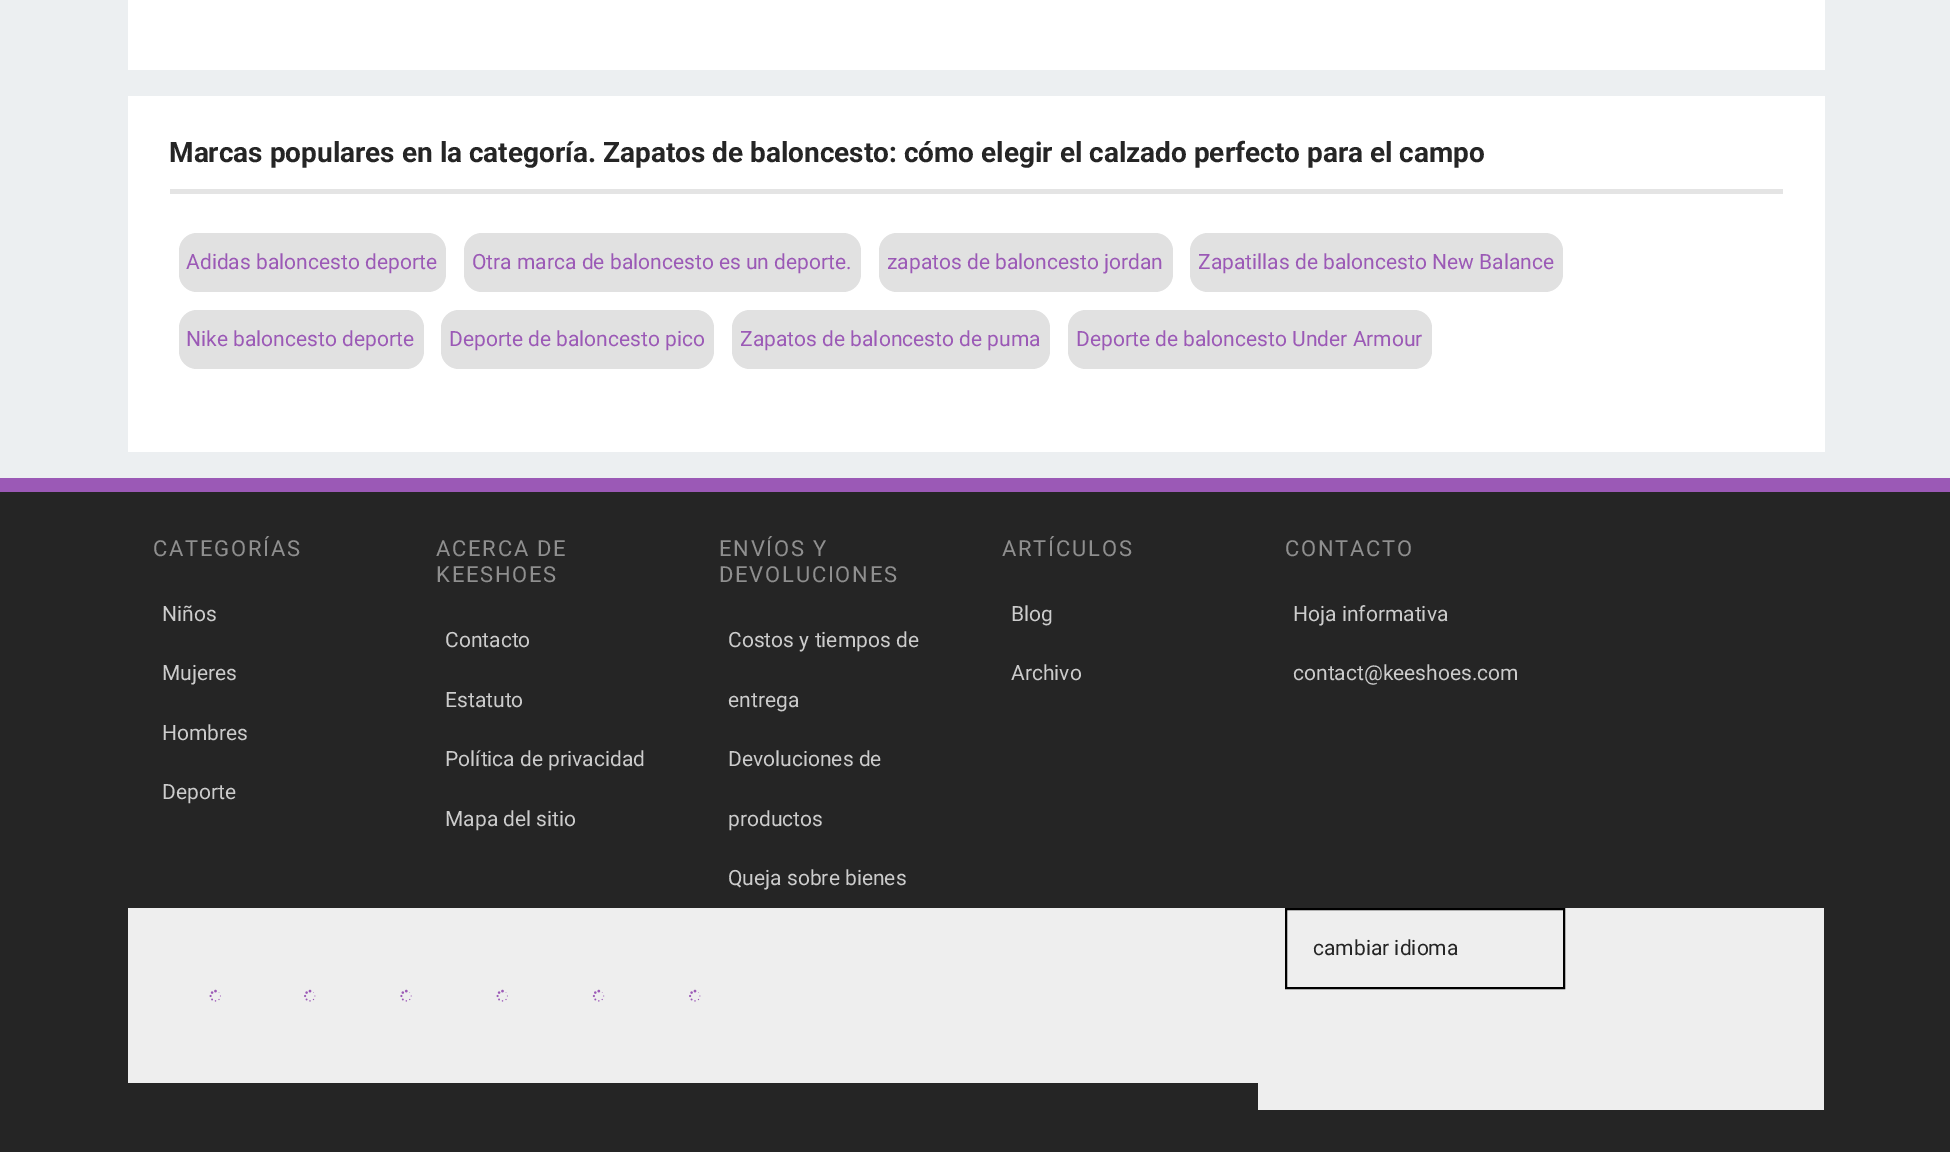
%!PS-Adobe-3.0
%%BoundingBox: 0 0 1950 1152
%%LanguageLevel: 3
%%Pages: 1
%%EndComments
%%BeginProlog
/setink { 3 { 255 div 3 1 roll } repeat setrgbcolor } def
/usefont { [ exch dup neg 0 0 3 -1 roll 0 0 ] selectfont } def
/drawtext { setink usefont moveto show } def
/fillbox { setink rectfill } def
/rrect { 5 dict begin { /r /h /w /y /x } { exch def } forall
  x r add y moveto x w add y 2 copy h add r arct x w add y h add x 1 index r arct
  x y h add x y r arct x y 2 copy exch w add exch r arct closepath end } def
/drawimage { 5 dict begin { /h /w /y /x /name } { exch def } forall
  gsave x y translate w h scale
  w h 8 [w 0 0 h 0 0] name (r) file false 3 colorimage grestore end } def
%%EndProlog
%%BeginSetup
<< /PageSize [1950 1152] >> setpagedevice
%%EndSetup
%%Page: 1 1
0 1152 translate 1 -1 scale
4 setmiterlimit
0 0 1950 1152 236 239 241 fillbox
128 0 1697 70 255 255 255 fillbox
128 96 1697 356 255 255 255 fillbox
170 189 1613 5 228 228 228 fillbox
(Marcas populares en la categoría. Zapatos de baloncesto: cómo elegir el calzado perfecto para el campo) 169 162 /Roboto-Bold 28 37 37 37 drawtext
225 225 225 setink
179 233 267 59 18 rrect fill
(Adidas baloncesto deporte) 186 269 /Roboto-Regular 21 155 89 182 drawtext
225 225 225 setink
464 233 397 59 18 rrect fill
(Otra marca de baloncesto es un deporte.) 472 269 /Roboto-Regular 21 155 89 182 drawtext
225 225 225 setink
879 233 294 59 18 rrect fill
(zapatos de baloncesto jordan) 887 269 /Roboto-Regular 21 155 89 182 drawtext
225 225 225 setink
1190 233 373 59 18 rrect fill
(Zapatillas de baloncesto New Balance) 1198 269 /Roboto-Regular 21 155 89 182 drawtext
225 225 225 setink
179 310 245 59 18 rrect fill
(Nike baloncesto deporte) 186 346 /Roboto-Regular 21 155 89 182 drawtext
225 225 225 setink
441 310 273 59 18 rrect fill
(Deporte de baloncesto pico) 449 346 /Roboto-Regular 21 155 89 182 drawtext
225 225 225 setink
732 310 318 59 18 rrect fill
(Zapatos de baloncesto de puma) 740 346 /Roboto-Regular 21 155 89 182 drawtext
225 225 225 setink
1068 310 364 59 18 rrect fill
(Deporte de baloncesto Under Armour) 1076 346 /Roboto-Regular 21 155 89 182 drawtext
0 492 1950 660 37 37 37 fillbox
0 478 1950 14 155 89 182 fillbox
/Roboto-Regular 22 usefont
143 143 143 setink
153 556 moveto 1.75 0 (CATEGORÍAS) ashow
(Niños) 162 621 /Roboto-Regular 21 204 204 204 drawtext
(Mujeres) 162 680 /Roboto-Regular 21 204 204 204 drawtext
(Hombres) 162 740 /Roboto-Regular 21 204 204 204 drawtext
(Deporte) 162 799 /Roboto-Regular 21 204 204 204 drawtext
/Roboto-Regular 22 usefont
143 143 143 setink
436 556 moveto 1.75 0 (ACERCA DE) ashow
436 582 moveto 1.75 0 (KEESHOES) ashow
(Contacto) 445 647 /Roboto-Regular 21 204 204 204 drawtext
(Estatuto) 445 707 /Roboto-Regular 21 204 204 204 drawtext
(Política de privacidad) 445 766 /Roboto-Regular 21 204 204 204 drawtext
(Mapa del sitio) 445 826 /Roboto-Regular 21 204 204 204 drawtext
/Roboto-Regular 22 usefont
143 143 143 setink
719 556 moveto 1.75 0 (ENVÍOS Y) ashow
719 582 moveto 1.75 0 (DEVOLUCIONES) ashow
(Costos y tiempos de) 728 647 /Roboto-Regular 21 204 204 204 drawtext
(entrega) 728 707 /Roboto-Regular 21 204 204 204 drawtext
(Devoluciones de) 728 766 /Roboto-Regular 21 204 204 204 drawtext
(productos) 728 826 /Roboto-Regular 21 204 204 204 drawtext
(Queja sobre bienes) 728 885 /Roboto-Regular 21 204 204 204 drawtext
/Roboto-Regular 22 usefont
143 143 143 setink
1002 556 moveto 1.75 0 (ARTÍCULOS) ashow
(Blog) 1011 621 /Roboto-Regular 21 204 204 204 drawtext
(Archivo) 1011 680 /Roboto-Regular 21 204 204 204 drawtext
/Roboto-Regular 22 usefont
143 143 143 setink
1285 556 moveto 1.75 0 (CONTACTO) ashow
(Hoja informativa) 1293 621 /Roboto-Regular 21 204 204 204 drawtext
(contact@keeshoes.com) 1293 680 /Roboto-Regular 21 204 204 204 drawtext
128 908 1130 175 238 238 238 fillbox
(assets/img1.rgb) 209 989 12 13 drawimage
(assets/img2.rgb) 304 989 12 13 drawimage
(assets/img3.rgb) 400 989 12 13 drawimage
(assets/img1.rgb) 496 989 12 13 drawimage
(assets/img4.rgb) 592 989 13 13 drawimage
(assets/img2.rgb) 689 989 12 13 drawimage
1258 908 566 202 238 238 238 fillbox
0 0 0 setink
2 setlinewidth
1286 909 278 79 rectstroke
(cambiar idioma) 1313 955 /Roboto-Regular 21 37 37 37 drawtext
showpage
%%EOF
